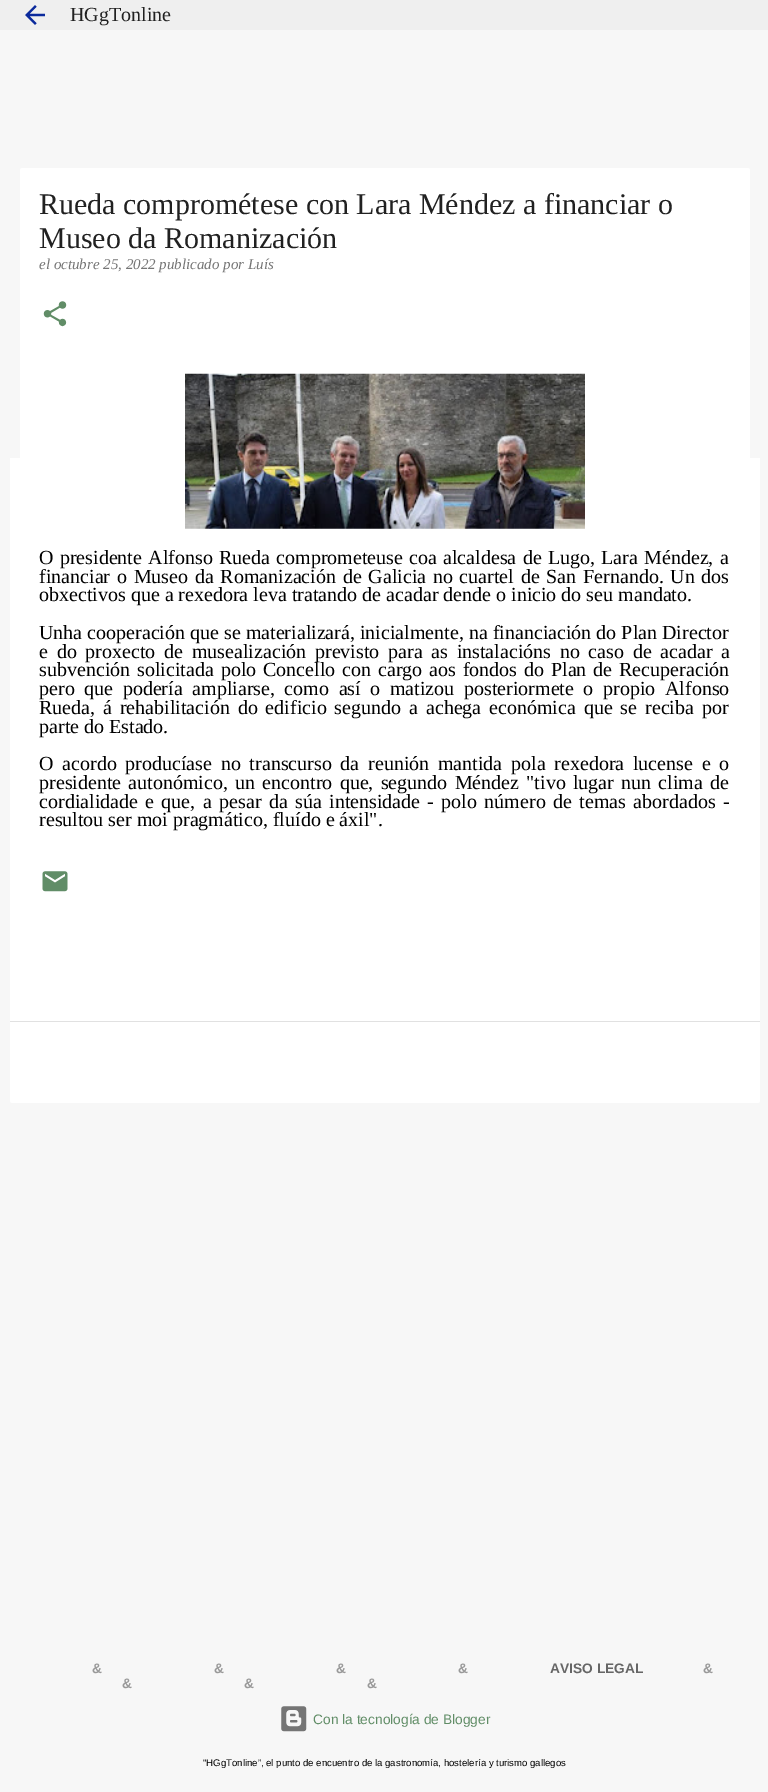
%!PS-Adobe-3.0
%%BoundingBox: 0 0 768 1792
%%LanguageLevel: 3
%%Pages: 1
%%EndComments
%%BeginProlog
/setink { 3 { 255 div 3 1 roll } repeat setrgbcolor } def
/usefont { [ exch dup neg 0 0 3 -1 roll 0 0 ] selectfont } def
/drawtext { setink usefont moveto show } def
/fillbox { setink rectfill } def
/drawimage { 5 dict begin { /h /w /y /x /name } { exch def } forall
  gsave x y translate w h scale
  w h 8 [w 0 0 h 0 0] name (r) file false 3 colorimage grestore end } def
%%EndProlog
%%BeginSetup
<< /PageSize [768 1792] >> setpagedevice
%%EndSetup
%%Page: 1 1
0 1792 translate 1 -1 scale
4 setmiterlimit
0 0 768 1792 247 247 247 fillbox
0 0 768 30 239 239 239 fillbox
(assets/img1.rgb) 25 5 20 20 drawimage
(HGgTonline) 70 21 /LiberationSerif-Regular 20 33 33 33 drawtext
10 458 750 563 255 255 255 fillbox
22.5 168 moveto 747.5 168 lineto 749 168 750 169 750 170.5 curveto 750 1021 lineto 20 1021 lineto 20 170.5 lineto 20 169 21 168 22.5 168 curveto closepath fill
(Rueda comprométese con Lara Méndez a financiar o) 39 214 /LiberationSerif-Regular 30 33 33 33 drawtext
(Museo da Romanización) 39 248 /LiberationSerif-Regular 30 33 33 33 drawtext
(el octubre 25, 2022 publicado por Luís) 39 269 /LiberationSerif-Italic 15 117 117 117 drawtext
(assets/img2.rgb) 43 301 24 26 drawimage
(assets/img3.rgb) 185 373 400 156 drawimage
/LiberationSerif-Regular 20 usefont
0 0 0 setink
39 564 moveto 1.25 0 32 (O presidente Alfonso Rueda comprometeuse coa alcaldesa de Lugo, Lara Méndez, a) widthshow
39 583 moveto 1.75 0 32 (financiar o Museo da Romanización de Galicia no cuartel de San Fernando. Un dos) widthshow
(obxectivos que a rexedora leva tratando de acadar dende o inicio do seu mandato.) 39 601 /LiberationSerif-Regular 20 0 0 0 drawtext
(Unha cooperación que se materializará, inicialmente, na financiación do Plan Director) 39 639 /LiberationSerif-Regular 20 0 0 0 drawtext
39 658 moveto 3.75 0 32 (e do proxecto de musealización previsto para as instalacións no caso de acadar a) widthshow
39 676 moveto 1.9 0 32 (subvención solicitada polo Concello con cargo aos fondos do Plan de Recuperación) widthshow
39 695 moveto 4.6 0 32 (pero que podería ampliarse, como así o matizou posteriormete o propio Alfonso) widthshow
39 714 moveto 2.9 0 32 (Rueda, á rehabilitación do edificio segundo a achega económica que se reciba por) widthshow
(parte do Estado.) 39 733 /LiberationSerif-Regular 20 0 0 0 drawtext
39 770 moveto 3.75 0 32 (O acordo producíase no transcurso da reunión mantida pola rexedora lucense e o) widthshow
39 789 moveto 2.25 0 32 (presidente autonómico, un encontro que, segundo Méndez "tivo lugar nun clima de) widthshow
39 808 moveto 2.4 0 32 (cordialidade e que, a pesar da súa intensidade - polo número de temas abordados -) widthshow
(resultou ser moi pragmático, fluído e áxil".) 39 826 /LiberationSerif-Regular 20 0 0 0 drawtext
(assets/img4.rgb) 42 871 26 21 drawimage
255 255 255 setink
10 1021 moveto 760 1021 lineto 760 1100.5 lineto 760 1102 759 1103 757.5 1103 curveto 12.5 1103 lineto 11 1103 10 1102 10 1100.5 curveto closepath fill
10 1021 750 1 225 225 225 fillbox
(&) 92 1673 /LiberationSans-Bold 13.75 153 153 153 drawtext
(&) 214 1673 /LiberationSans-Bold 13.75 153 153 153 drawtext
(&) 336 1673 /LiberationSans-Bold 13.75 153 153 153 drawtext
(&) 458 1673 /LiberationSans-Bold 13.75 153 153 153 drawtext
(AVISO LEGAL) 550 1673 /LiberationSans-Bold 13.75 102 102 102 drawtext
(&) 703 1673 /LiberationSans-Bold 13.75 153 153 153 drawtext
(&) 122 1688 /LiberationSans-Bold 13.75 153 153 153 drawtext
(&) 244 1688 /LiberationSans-Bold 13.75 153 153 153 drawtext
(&) 367 1688 /LiberationSans-Bold 13.75 153 153 153 drawtext
(assets/img5.rgb) 281 1706 26 26 drawimage
(Con la tecnología de Blogger) 313 1724 /LiberationSans-Regular 13.75 97 141 103 drawtext
("HGgTonline”, el punto de encuentro de la gastronomía, hostelería y turismo gallegos) 203 1766 /LiberationSans-Regular 9.6 0 0 0 drawtext
showpage
%%EOF
